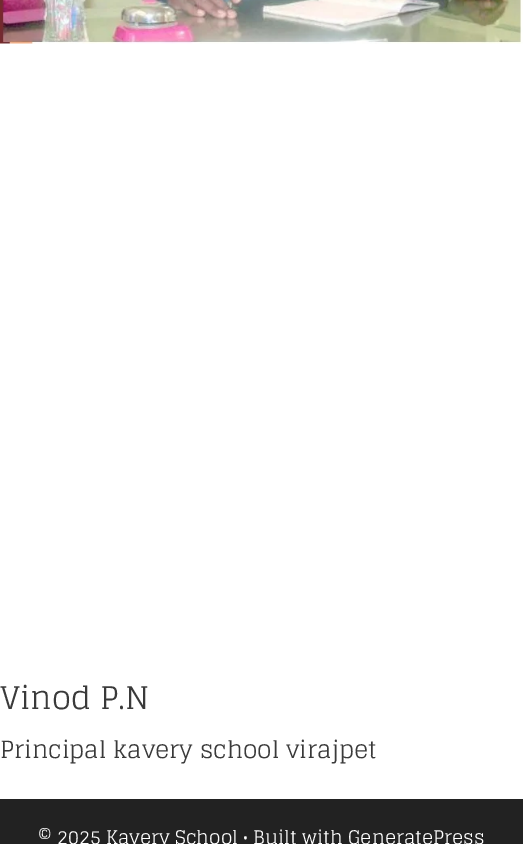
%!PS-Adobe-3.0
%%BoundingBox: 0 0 523 844
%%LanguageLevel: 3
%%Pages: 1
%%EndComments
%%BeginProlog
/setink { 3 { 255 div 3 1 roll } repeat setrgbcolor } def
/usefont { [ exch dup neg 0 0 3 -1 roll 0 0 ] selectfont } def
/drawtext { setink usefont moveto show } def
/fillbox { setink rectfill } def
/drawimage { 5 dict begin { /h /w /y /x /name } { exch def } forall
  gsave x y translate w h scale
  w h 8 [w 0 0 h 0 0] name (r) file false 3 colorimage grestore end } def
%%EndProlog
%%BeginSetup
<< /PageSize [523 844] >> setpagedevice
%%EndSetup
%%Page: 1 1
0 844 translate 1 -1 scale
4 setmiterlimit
0 0 523 844 255 255 255 fillbox
(assets/img1.rgb) 0 0 523 44 drawimage
(Vinod P.N) 0 709 /Glegoo-Regular 31.25 58 58 58 drawtext
(Principal kavery school virajpet) 0 758 /Glegoo-Regular 23.75 58 58 58 drawtext
0 799 523 45 34 34 34 fillbox
(© 2025 Kavery School • Built with GeneratePress) 38 844 /Glegoo-Regular 18.75 255 255 255 drawtext
showpage
%%EOF
